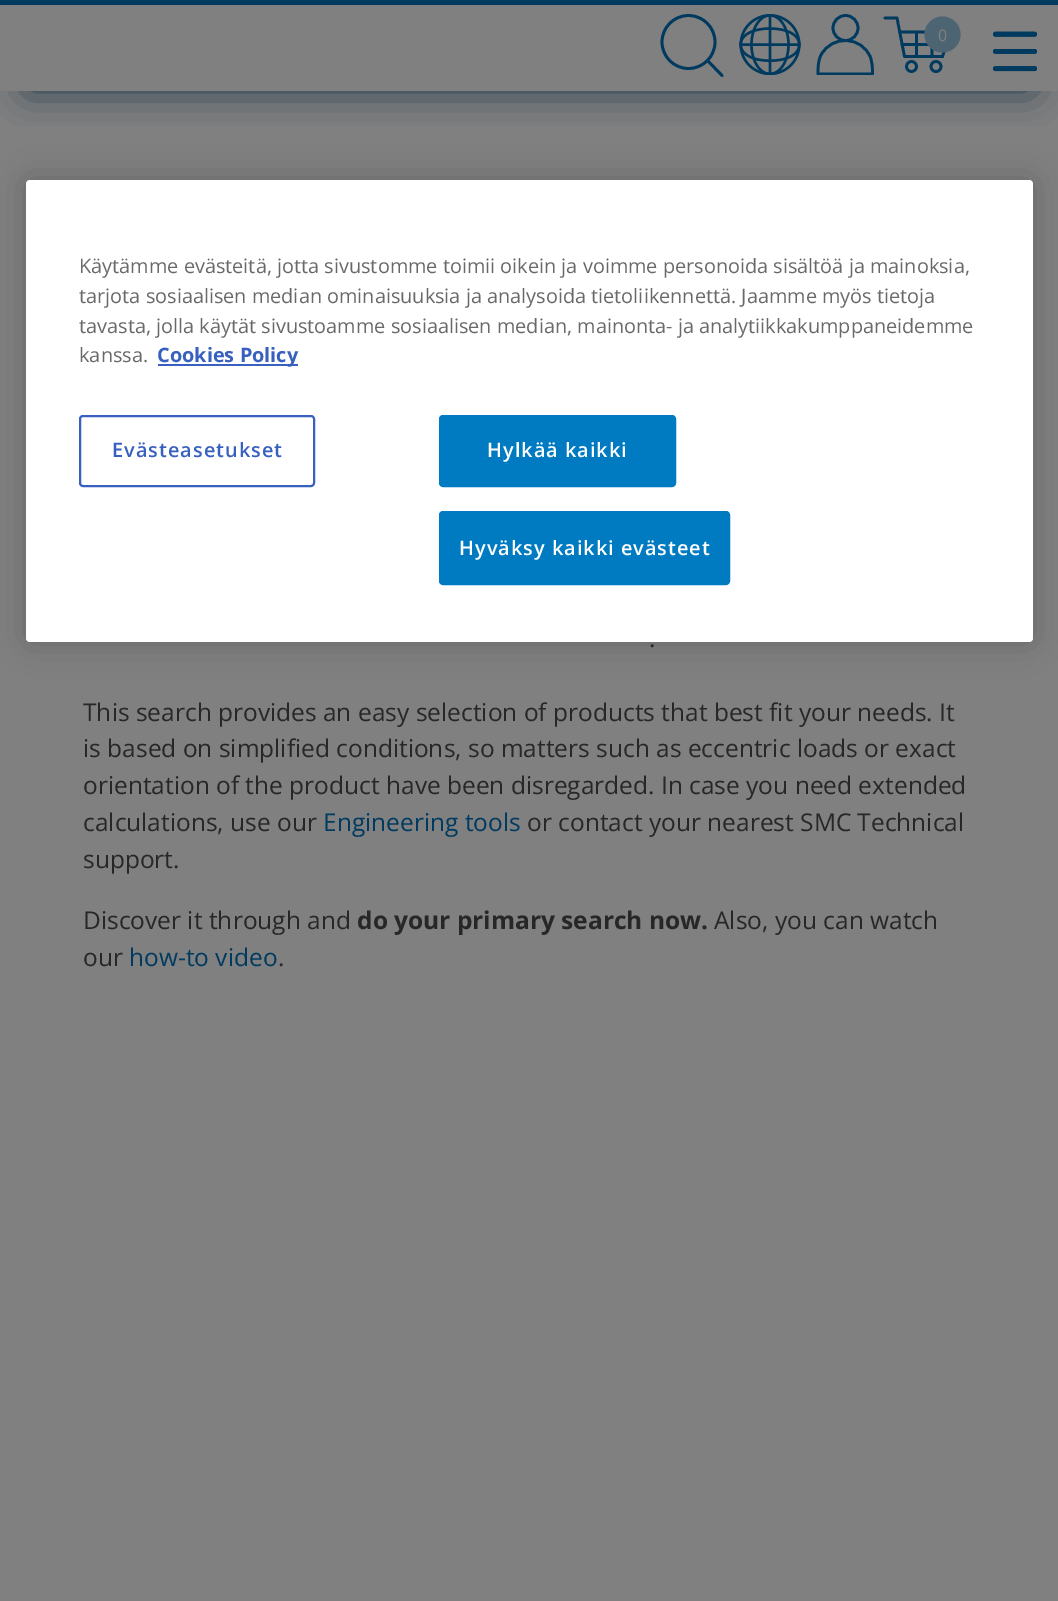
%!PS-Adobe-3.0
%%BoundingBox: 0 0 1058 1601
%%LanguageLevel: 3
%%Pages: 1
%%EndComments
%%BeginProlog
/setink { 3 { 255 div 3 1 roll } repeat setrgbcolor } def
/usefont { [ exch dup neg 0 0 3 -1 roll 0 0 ] selectfont } def
/drawtext { setink usefont moveto show } def
/fillbox { setink rectfill } def
/setalpha { dup .setfillconstantalpha .setstrokeconstantalpha } def
/disc { newpath 0 360 arc closepath } def
/rrect { 5 dict begin { /r /h /w /y /x } { exch def } forall
  x r add y moveto x w add y 2 copy h add r arct x w add y h add x 1 index r arct
  x y h add x y r arct x y 2 copy exch w add exch r arct closepath end } def
/softshadow { 12 dict begin { /a /b /q /h /w /y /x } { exch def } forall gsave /was 0 def
  9 -2 -9 { dup b mul 4 div /e exch def 1 sub .425 mul 2.718 exch exp 1 add a .99 .min exch div /now exch def
    1 1 now sub 1 was sub div sub setalpha /was now def
    w h .min e 2 mul add 0 gt { x e sub y e sub w e 2 mul add h e 2 mul add
      q e add b .6 mul add w h .min 2 div e add .min 0 .max rrect fill } if } for grestore end } def
/drawimage { 5 dict begin { /h /w /y /x /name } { exch def } forall
  gsave x y translate w h scale
  w h 8 [w 0 0 h 0 0] name (r) file false 3 colorimage grestore end } def
%%EndProlog
%%BeginSetup
<< /PageSize [1058 1601] /PageUsesTransparency true >> setpagedevice
%%EndSetup
%%Page: 1 1
0 .pushpdf14devicefilter
0 1601 translate 1 -1 scale
4 setmiterlimit
0 0 1058 1601 128 128 128 fillbox
gsave
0 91 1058 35 rectclip
0 34 56 setink
28 54 1003 35 0 19 0.81 softshadow
grestore
0 0 1058 5 0 58 95 fillbox
2.8 setlinewidth
688.5 42 26.5 disc stroke
1 setlinecap
1 setlinejoin
707.5 60.5 moveto 722 75.5 lineto stroke
(assets/img1.rgb) 739 14 62 61 drawimage
gsave
810 14 70 61 rectclip
2.7 setlinewidth
872.5 74 moveto 872.5 68.5 872.5 63 870.5 57.5 curveto 862 36 832 34.5 821 55 curveto 818 61 818 67.5 818 74 curveto closepath stroke
grestore
2.7 setlinewidth
0 setlinecap
0 setlinejoin
845.5 28 12.5 disc stroke
1 setlinecap
1 setlinejoin
885 18 moveto 897 18 lineto 904.5 56.5 lineto 942.5 56.5 lineto stroke
0 setlinecap
0 setlinejoin
911.5 66.5 5 disc stroke
936 66.5 5 disc stroke
1 setlinecap
1 setlinejoin
942.5 56.5 moveto 950.5 32 lineto 900 32 moveto 950.5 32 lineto 902 44.5 moveto 946.5 44.5 lineto 932 32 moveto 932 56.5 lineto 916.5 32 moveto 916.5 56.5 lineto stroke
77 100 115 setink
942.5 34.5 18 disc fill
(0) 938 41 /OpenSans-Regular 16 128 128 128 drawtext
(assets/img2.rgb) 993 31 44 41 drawimage
(assets/img3.rgb) 993 31 44 41 drawimage
0 0 0 setink
26 180 1007 462 4 16 0.2 softshadow
255 255 255 setink
26 180 1007 462 4 rrect fill
(Käytämme evästeitä, jotta sivustomme toimii oikein ja voimme personoida sisältöä ja mainoksia,) 79 273 /OpenSans-Regular 19.9 105 105 105 drawtext
(tarjota sosiaalisen median ominaisuuksia ja analysoida tietoliikennettä. Jaamme myös tietoja) 79 303 /OpenSans-Regular 19.9 105 105 105 drawtext
(tavasta, jolla käytät sivustoamme sosiaalisen median, mainonta- ja analytiikkakumppaneidemme) 79 333 /OpenSans-Regular 19.9 105 105 105 drawtext
(kanssa.) 79 362 /OpenSans-Regular 19.9 105 105 105 drawtext
158 364 140 2 56 96 190 fillbox
(Cookies Policy) 157 362 /OpenSans-Bold 19.9 56 96 190 drawtext
2 setlinewidth
0 setlinecap
0 setlinejoin
80 416 234 70 3 rrect stroke
/OpenSans-SemiBold 19.9 usefont
112 457 moveto 1 0 (Evästeasetukset) ashow
0 123 194 setink
440 416 235 70 3 rrect gsave fill grestore
stroke
255 255 255 setink
487 457 moveto 1 0 (Hylkää kaikki) ashow
0 123 194 setink
440 512 289 72 3 rrect gsave fill grestore
stroke
255 255 255 setink
459 555 moveto 1 0 (Hyväksy kaikki evästeet) ashow
(.) 649 647 /OpenSans-Regular 24.5 39 39 39 drawtext
(This search provides an easy selection of products that best fit your needs. It) 83 721 /OpenSans-Regular 24.5 39 39 39 drawtext
(is based on simplified conditions, so matters such as eccentric loads or exact) 83 757 /OpenSans-Regular 24.5 39 39 39 drawtext
(orientation of the product have been disregarded. In case you need extended) 83 794 /OpenSans-Regular 24.5 39 39 39 drawtext
(calculations, use our) 83 831 /OpenSans-Regular 24.5 39 39 39 drawtext
(Engineering tools) 323 831 /OpenSans-Regular 24.5 0 58 95 drawtext
(or contact your nearest SMC Technical) 527 831 /OpenSans-Regular 24.5 39 39 39 drawtext
(support.) 83 868 /OpenSans-Regular 24.5 39 39 39 drawtext
(Discover it through and) 83 929 /OpenSans-Regular 24.5 39 39 39 drawtext
(do your primary search now.) 357 929 /OpenSans-Bold 24.5 39 39 39 drawtext
(Also, you can watch) 714 929 /OpenSans-Regular 24.5 39 39 39 drawtext
(our) 83 966 /OpenSans-Regular 24.5 39 39 39 drawtext
(how-to video) 129 966 /OpenSans-Regular 24.5 0 58 95 drawtext
(.) 278 966 /OpenSans-Regular 24.5 39 39 39 drawtext
.poppdf14devicefilter showpage
%%EOF
